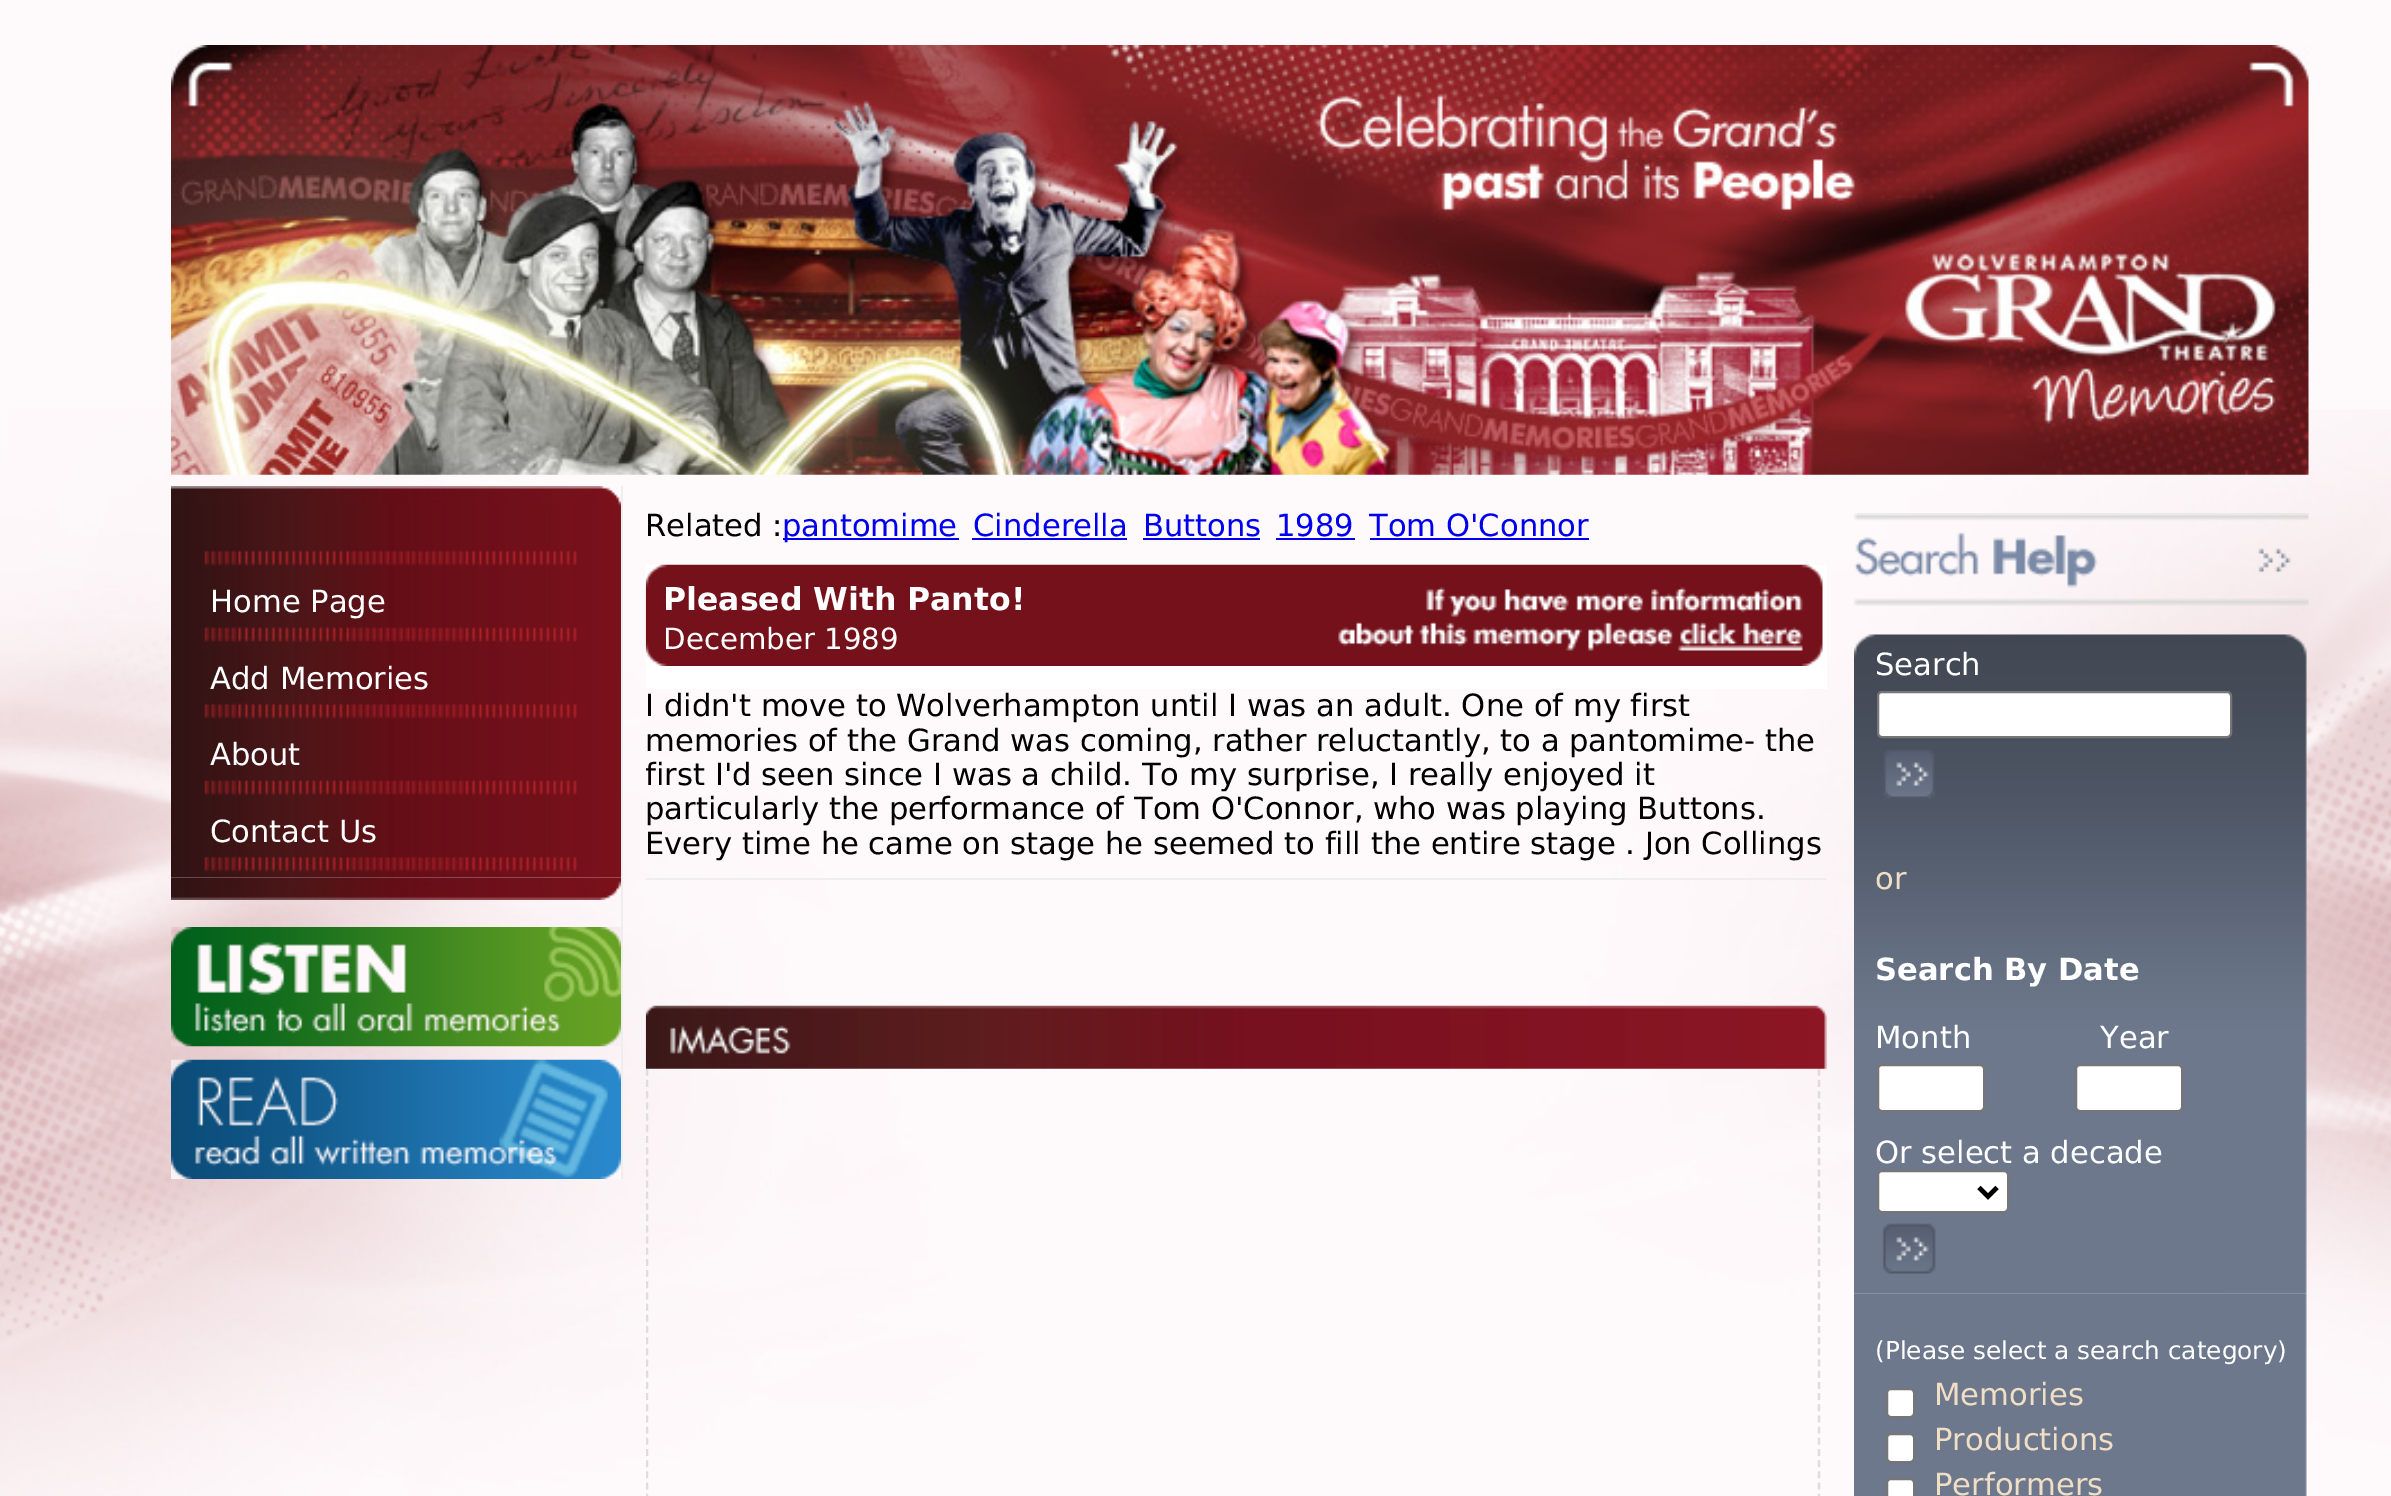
%!PS-Adobe-3.0
%%BoundingBox: 0 0 2391 1496
%%LanguageLevel: 3
%%Pages: 1
%%EndComments
%%BeginProlog
/setink { 3 { 255 div 3 1 roll } repeat setrgbcolor } def
/usefont { [ exch dup neg 0 0 3 -1 roll 0 0 ] selectfont } def
/drawtext { setink usefont moveto show } def
/fillbox { setink rectfill } def
/rrect { 5 dict begin { /r /h /w /y /x } { exch def } forall
  x r add y moveto x w add y 2 copy h add r arct x w add y h add x 1 index r arct
  x y h add x y r arct x y 2 copy exch w add exch r arct closepath end } def
/drawimage { 5 dict begin { /h /w /y /x /name } { exch def } forall
  gsave x y translate w h scale
  w h 8 [w 0 0 h 0 0] name (r) file false 3 colorimage grestore end } def
%%EndProlog
%%BeginSetup
<< /PageSize [2391 1496] >> setpagedevice
%%EndSetup
%%Page: 1 1
0 1496 translate 1 -1 scale
4 setmiterlimit
0 0 2391 1496 254 250 251 fillbox
(assets/img1.rgb) 0 409 2391 1087 drawimage
(assets/img2.rgb) 171 45 2138 430 drawimage
621 486 2 693 238 238 238 fillbox
(assets/img3.rgb) 171 877 450 23 drawimage
(assets/img4.rgb) 171 486 450 392 drawimage
(assets/img5.rgb) 204 550 373 16 drawimage
(assets/img6.rgb) 204 627 373 15 drawimage
(Home Page) 210 612 /DejaVuSans-Regular 30.6 255 255 255 drawtext
(assets/img5.rgb) 204 703 373 16 drawimage
(Add Memories) 210 689 /DejaVuSans-Regular 30.6 255 255 255 drawtext
(assets/img7.rgb) 204 780 373 15 drawimage
(About) 210 765 /DejaVuSans-Regular 30.6 255 255 255 drawtext
(assets/img5.rgb) 204 856 373 16 drawimage
(Contact Us) 210 842 /DejaVuSans-Regular 30.6 255 255 255 drawtext
(assets/img8.rgb) 171 927 450 120 drawimage
(assets/img9.rgb) 171 1059 450 120 drawimage
(Related :) 645 536 /DejaVuSans-Regular 30.6 0 0 0 drawtext
783 538 176 2 0 0 238 fillbox
(pantomime) 782 536 /DejaVuSans-Regular 30.6 0 0 238 drawtext
(Cinderella) 973 536 /DejaVuSans-Regular 30.6 0 0 238 drawtext
972 538 155 2 0 0 238 fillbox
(Buttons) 1143 536 /DejaVuSans-Regular 30.6 0 0 238 drawtext
1143 538 117 2 0 0 238 fillbox
(1989) 1276 536 /DejaVuSans-Regular 30.6 0 0 238 drawtext
1276 538 79 2 0 0 238 fillbox
(Tom O'Connor) 1369 536 /DejaVuSans-Regular 30.6 0 0 238 drawtext
1370 538 219 2 0 0 238 fillbox
646 878 1181 2 238 238 238 fillbox
646 565 1181 124 255 255 255 fillbox
(assets/img10.rgb) 645 564 1178 102 drawimage
(Pleased With Panto!) 663 610 /DejaVuSans-Bold 31.5 255 255 255 drawtext
(assets/img11.rgb) 1338 587 465 64 drawimage
(December 1989) 663 649 /DejaVuSans-Regular 29.25 255 255 255 drawtext
(I didn't move to Wolverhampton until I was an adult. One of my first) 645 716 /DejaVuSans-Regular 30.6 0 0 0 drawtext
(memories of the Grand was coming, rather reluctantly, to a pantomime- the) 645 751 /DejaVuSans-Regular 30.6 0 0 0 drawtext
gsave
646 486 1181 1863 rectclip
(first I'd seen since I was a child. To my surprise, I really enjoyed it) 645 785 /DejaVuSans-Regular 30.6 0 0 0 drawtext
grestore
(particularly the performance of Tom O'Connor, who was playing Buttons.) 645 819 /DejaVuSans-Regular 30.6 0 0 0 drawtext
(Every time he came on stage he seemed to fill the entire stage . Jon Collings) 645 854 /DejaVuSans-Regular 30.6 0 0 0 drawtext
(assets/img12.rgb) 645 1005 1182 64 drawimage
221 221 221 setink
2.2 setlinewidth
[6.75 4.43] 0 setdash
1819 1069 moveto 1819 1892 lineto stroke
gsave
646 1006 1181 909 rectclip
647 1069 moveto 647 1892 lineto stroke
grestore
(assets/img13.rgb) 1854 513 455 93 drawimage
(assets/img14.rgb) 1854 634 453 660 drawimage
(Search) 1875 675 /DejaVuSans-Regular 30.6 255 255 255 drawtext
1878 692 353 45 4 rrect gsave fill grestore
118 118 118 setink
2 setlinewidth
[] 0 setdash
stroke
(assets/img15.rgb) 1883 749 52 50 drawimage
(or) 1875 889 /DejaVuSans-Regular 30.6 240 222 197 drawtext
(Search By Date) 1875 980 /DejaVuSans-Bold 30.6 255 255 255 drawtext
(Month) 1875 1048 /DejaVuSans-Regular 30.6 255 255 255 drawtext
1878 1065 106 46 4 rrect gsave fill grestore
118 118 118 setink
stroke
(Year) 2100 1048 /DejaVuSans-Regular 30.6 255 255 255 drawtext
2076 1065 106 46 4 rrect gsave fill grestore
118 118 118 setink
stroke
(Or select a decade) 1875 1163 /DejaVuSans-Regular 30.6 255 255 255 drawtext
1878 1171 130 41 4 rrect gsave fill grestore
118 118 118 setink
stroke
0 0 0 setink
4.5 setlinewidth
1979 1187.5 moveto 1988 1196.5 lineto 1997 1187.5 lineto stroke
(assets/img16.rgb) 1882 1223 54 51 drawimage
(assets/img17.rgb) 1854 1293 453 203 drawimage
(\(Please select a search category\)) 1875 1359 /DejaVuSans-Regular 24.75 255 255 255 drawtext
1887 1389 27 28 4 rrect gsave fill grestore
118 118 118 setink
2 setlinewidth
stroke
(Memories) 1934 1405 /DejaVuSans-Regular 30.6 240 222 197 drawtext
255 255 255 setink
1887 1434 27 28 4 rrect gsave fill grestore
118 118 118 setink
stroke
(Productions) 1934 1450 /DejaVuSans-Regular 30.6 240 222 197 drawtext
255 255 255 setink
1887 1479 27 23 4 rrect gsave fill grestore
118 118 118 setink
stroke
(Performers) 1934 1495 /DejaVuSans-Regular 30.6 240 222 197 drawtext
showpage
%%EOF
